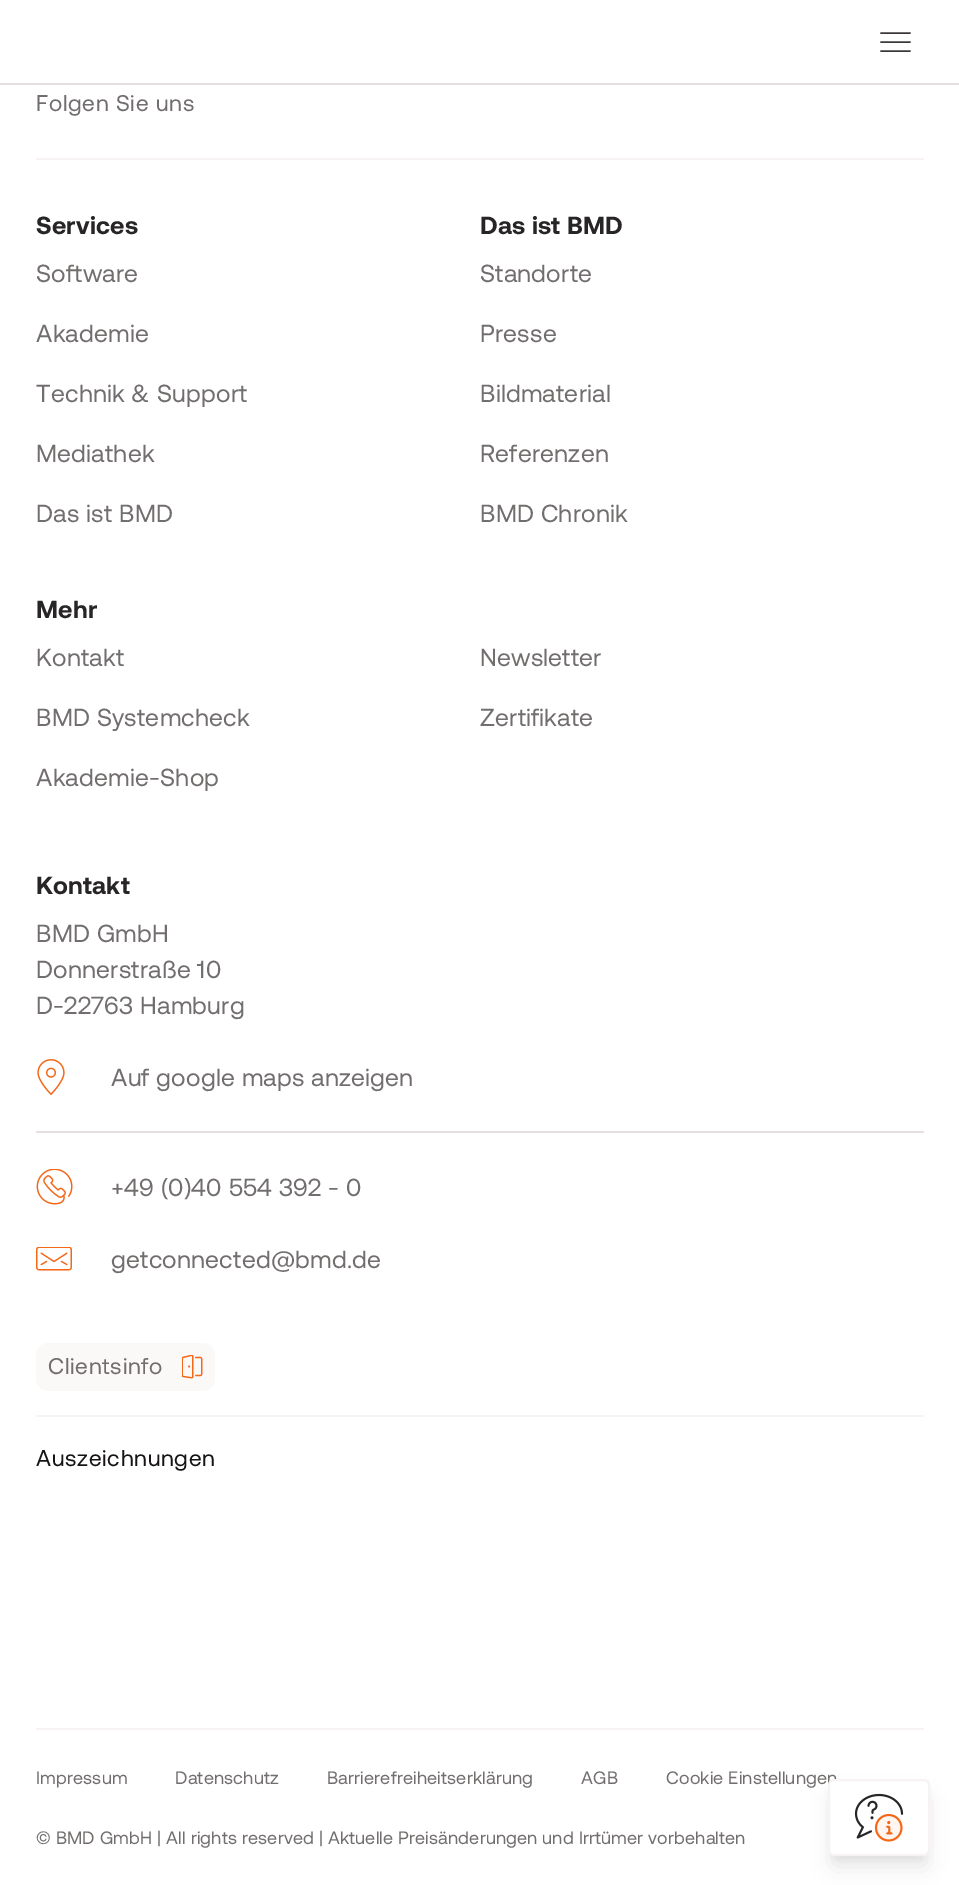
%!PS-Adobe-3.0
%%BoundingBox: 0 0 959 1885
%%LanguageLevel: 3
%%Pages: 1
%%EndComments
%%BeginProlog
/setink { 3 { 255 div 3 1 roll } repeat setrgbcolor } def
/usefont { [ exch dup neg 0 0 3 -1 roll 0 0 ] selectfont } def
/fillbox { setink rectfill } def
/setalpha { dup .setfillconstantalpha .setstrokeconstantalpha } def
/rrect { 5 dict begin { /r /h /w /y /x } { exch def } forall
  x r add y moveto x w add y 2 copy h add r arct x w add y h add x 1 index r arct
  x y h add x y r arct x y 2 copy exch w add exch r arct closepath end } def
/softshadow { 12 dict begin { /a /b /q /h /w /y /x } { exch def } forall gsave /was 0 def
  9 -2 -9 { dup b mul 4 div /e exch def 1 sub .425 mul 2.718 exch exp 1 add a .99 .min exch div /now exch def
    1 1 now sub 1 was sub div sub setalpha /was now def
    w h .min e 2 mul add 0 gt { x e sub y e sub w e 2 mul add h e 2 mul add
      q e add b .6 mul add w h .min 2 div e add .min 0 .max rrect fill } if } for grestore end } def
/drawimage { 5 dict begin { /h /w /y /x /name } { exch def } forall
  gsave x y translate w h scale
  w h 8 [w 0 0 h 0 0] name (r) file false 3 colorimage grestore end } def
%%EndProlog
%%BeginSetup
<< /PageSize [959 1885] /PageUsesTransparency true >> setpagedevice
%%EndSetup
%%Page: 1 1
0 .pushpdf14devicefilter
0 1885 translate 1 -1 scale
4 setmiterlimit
0 0 959 1885 255 255 255 fillbox
0 83 959 2 229 224 223 fillbox
60 56 56 setink
1.5 setlinewidth
1 setlinecap
1 setlinejoin
881 51 moveto 910 51 lineto 881 42 moveto 910 42 lineto 881 33 moveto 910 33 lineto stroke
36 158 888 2 247 243 242 fillbox
/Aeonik-Regular 22.75 usefont
114 110 110 setink
36 111 moveto 0.75 0 (Folgen Sie uns) ashow
/Aeonik-Bold 24.75 usefont
39 37 37 setink
36 234 moveto 0.25 0 (Services) ashow
/Aeonik-Regular 24.75 usefont
114 110 110 setink
36 282 moveto 0.25 0 (Software) ashow
36 342 moveto 0.25 0 (Akademie) ashow
36 402 moveto 0.25 0 (Technik & Support) ashow
36 462 moveto 0.25 0 (Mediathek) ashow
36 522 moveto 0.25 0 (Das ist BMD) ashow
/Aeonik-Bold 24.75 usefont
39 37 37 setink
480 234 moveto 0.25 0 (Das ist BMD) ashow
/Aeonik-Regular 24.75 usefont
114 110 110 setink
480 282 moveto 0.25 0 (Standorte) ashow
480 342 moveto 0.25 0 (Presse) ashow
480 402 moveto 0.25 0 (Bildmaterial) ashow
480 462 moveto 0.25 0 (Referenzen) ashow
480 522 moveto 0.25 0 (BMD Chronik) ashow
/Aeonik-Bold 24.75 usefont
39 37 37 setink
36 618 moveto 0.25 0 (Mehr) ashow
/Aeonik-Regular 24.75 usefont
114 110 110 setink
36 666 moveto 0.25 0 (Kontakt) ashow
480 666 moveto 0.25 0 (Newsletter) ashow
36 726 moveto 0.25 0 (BMD Systemcheck) ashow
480 726 moveto 0.25 0 (Zertifikate) ashow
36 786 moveto 0.25 0 (Akademie-Shop) ashow
/Aeonik-Bold 24.75 usefont
39 37 37 setink
36 894 moveto 0.25 0 (Kontakt) ashow
/Aeonik-Regular 24.75 usefont
114 110 110 setink
36 942 moveto 0.25 0 (BMD GmbH) ashow
36 978 moveto 0.25 0 (Donnerstraße 10) ashow
36 1014 moveto 0.25 0 (D-22763 Hamburg) ashow
(assets/img1.rgb) 37 1059 28 36 drawimage
111 1086 moveto 0.25 0 (Auf google maps anzeigen) ashow
36 1131 888 2 229 224 223 fillbox
(assets/img2.rgb) 36 1169 37 36 drawimage
114 110 110 setink
111 1196 moveto 0.25 0 (+49 \(0\)40 554 392 - 0) ashow
(assets/img3.rgb) 36 1247 36 24 drawimage
111 1268 moveto 0.25 0 (getconnected@bmd.de) ashow
251 249 248 setink
36 1343 179 48 12 rrect fill
/Aeonik-Regular 22.75 usefont
114 110 110 setink
48 1374 moveto 0.75 0 (Clientsinfo) ashow
(assets/img4.rgb) 182 1355 21 24 drawimage
36 1415 888 2 247 243 242 fillbox
23 20 20 setink
36 1466 moveto 0.75 0 (Auszeichnungen) ashow
36 1728 888 2 247 243 242 fillbox
/Aeonik-Regular 18 usefont
114 110 110 setink
36 1784 moveto 0.18 0 (Impressum) ashow
175 1784 moveto 0.18 0 (Datenschutz) ashow
327 1784 moveto 0.18 0 (Barrierefreiheitserklärung) ashow
581 1784 moveto 0.18 0 (AGB) ashow
666 1784 moveto 0.18 0 (Cookie Einstellungen) ashow
36 1844 moveto 0.18 0 (© BMD GmbH | All rights reserved | Aktuelle Preisänderungen und Irrtümer vorbehalten) ashow
0 0 0 setink
834 1791 90 65 0 4.5 0.1 softshadow
833 1799 93 67 1.5 11 0.1 softshadow
255 255 255 setink
829 1780 100 75 5 rrect gsave fill grestore
247 243 242 setink
2 setlinewidth
0 setlinecap
0 setlinejoin
stroke
(assets/img5.rgb) 854 1793 50 49 drawimage
.poppdf14devicefilter showpage
%%EOF
